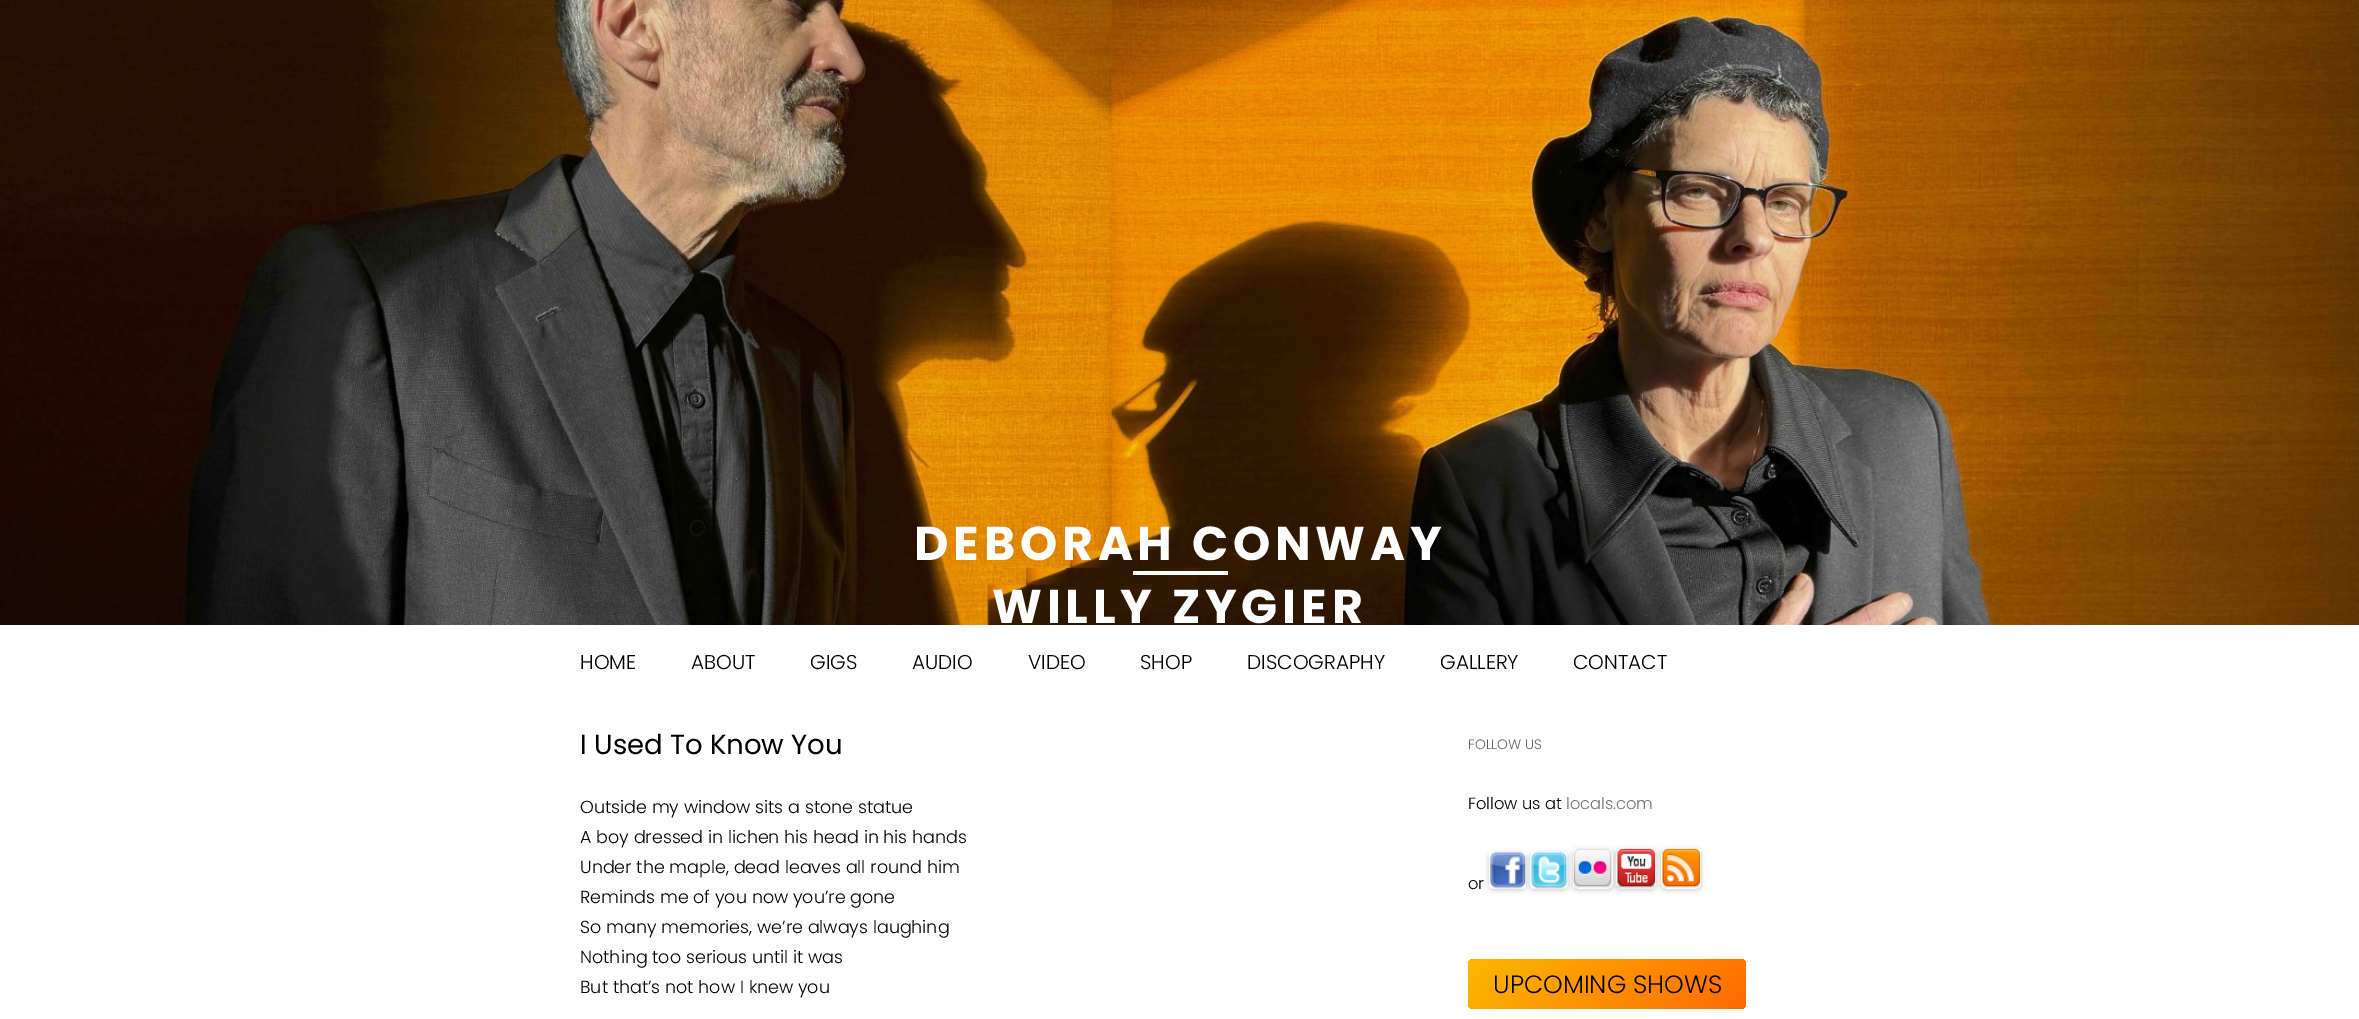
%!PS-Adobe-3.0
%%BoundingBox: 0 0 2359 1019
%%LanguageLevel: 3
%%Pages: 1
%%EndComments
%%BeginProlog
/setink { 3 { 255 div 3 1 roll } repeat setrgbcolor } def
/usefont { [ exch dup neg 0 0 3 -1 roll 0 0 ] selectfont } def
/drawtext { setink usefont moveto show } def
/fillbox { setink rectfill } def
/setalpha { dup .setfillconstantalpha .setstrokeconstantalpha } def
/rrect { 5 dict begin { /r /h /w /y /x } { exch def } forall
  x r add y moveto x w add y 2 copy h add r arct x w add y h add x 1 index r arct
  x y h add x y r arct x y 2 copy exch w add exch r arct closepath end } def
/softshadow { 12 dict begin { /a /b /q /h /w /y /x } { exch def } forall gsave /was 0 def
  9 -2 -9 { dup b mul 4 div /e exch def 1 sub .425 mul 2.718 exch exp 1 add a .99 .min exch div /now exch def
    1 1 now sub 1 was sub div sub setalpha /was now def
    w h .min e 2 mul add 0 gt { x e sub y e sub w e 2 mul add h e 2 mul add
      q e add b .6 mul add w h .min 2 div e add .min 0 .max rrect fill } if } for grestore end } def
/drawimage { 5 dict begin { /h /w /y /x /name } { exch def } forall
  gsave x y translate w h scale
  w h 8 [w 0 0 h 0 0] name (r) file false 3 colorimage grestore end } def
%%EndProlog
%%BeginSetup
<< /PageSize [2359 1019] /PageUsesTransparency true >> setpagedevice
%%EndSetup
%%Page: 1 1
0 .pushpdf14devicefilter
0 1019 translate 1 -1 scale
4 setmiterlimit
0 0 2359 1019 255 255 255 fillbox
(assets/img1.rgb) 0 0 2359 625 drawimage
/Poppins-Bold 47.5 usefont
914 560 moveto 4.75 0 (DEBORAH CONWAY) ashow
1133 571 95 4 255 255 255 fillbox
992 623 moveto 4.75 0 (WILLY ZYGIER) ashow
(HOME) 580 669 /Poppins-Light 20 0 0 0 drawtext
(ABOUT) 691 669 /Poppins-Light 20 0 0 0 drawtext
(GIGS) 810 669 /Poppins-Light 20 0 0 0 drawtext
(AUDIO) 912 669 /Poppins-Light 20 0 0 0 drawtext
(VIDEO) 1028 669 /Poppins-Light 20 0 0 0 drawtext
(SHOP) 1140 669 /Poppins-Light 20 0 0 0 drawtext
(DISCOGRAPHY) 1247 669 /Poppins-Light 20 0 0 0 drawtext
(GALLERY) 1440 669 /Poppins-Light 20 0 0 0 drawtext
(CONTACT) 1573 669 /Poppins-Light 20 0 0 0 drawtext
(I Used To Know You) 580 754 /Poppins-Regular 27.5 0 0 0 drawtext
(Outside my window sits a stone statue) 580 813 /Poppins-Light 17.5 0 0 0 drawtext
(A boy dressed in lichen his head in his hands) 580 843 /Poppins-Light 17.5 0 0 0 drawtext
(Under the maple, dead leaves all round him) 580 873 /Poppins-Light 17.5 0 0 0 drawtext
(Reminds me of you now you’re gone) 580 903 /Poppins-Light 17.5 0 0 0 drawtext
(So many memories, we’re always laughing) 580 933 /Poppins-Light 17.5 0 0 0 drawtext
(Nothing too serious until it was) 580 963 /Poppins-Light 17.5 0 0 0 drawtext
(But that’s not how I knew you) 580 993 /Poppins-Light 17.5 0 0 0 drawtext
(FOLLOW US) 1468 749 /Poppins-Light 13.75 99 99 99 drawtext
(Follow us at) 1468 809 /Poppins-Light 16.25 0 0 0 drawtext
(locals.com) 1566 809 /Poppins-Light 16.25 117 117 117 drawtext
gsave
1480 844 moveto 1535 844 lineto 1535 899 lineto 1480 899 lineto closepath 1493 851 moveto 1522 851 lineto 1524 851 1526 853 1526 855 curveto 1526 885 lineto 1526 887 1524 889 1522 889 curveto 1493 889 lineto 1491 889 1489 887 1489 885 curveto 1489 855 lineto 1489 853 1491 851 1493 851 curveto closepath eoclip newpath
0 0 0 setink
1489 853 37 37 4 2.5 0.2 softshadow
grestore
(assets/img2.rgb) 1489 851 37 38 drawimage
gsave
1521 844 moveto 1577 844 lineto 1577 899 lineto 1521 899 lineto closepath 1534 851 moveto 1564 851 lineto 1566 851 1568 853 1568 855 curveto 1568 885 lineto 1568 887 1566 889 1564 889 curveto 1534 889 lineto 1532 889 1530 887 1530 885 curveto 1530 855 lineto 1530 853 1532 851 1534 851 curveto closepath eoclip newpath
0 0 0 setink
1530 853 38 37 4 2.5 0.2 softshadow
grestore
(assets/img3.rgb) 1531 851 37 38 drawimage
gsave
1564 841 moveto 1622 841 lineto 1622 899 lineto 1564 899 lineto closepath 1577 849 moveto 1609 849 lineto 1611 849 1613 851 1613 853 curveto 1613 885 lineto 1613 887 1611 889 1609 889 curveto 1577 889 lineto 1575 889 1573 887 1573 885 curveto 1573 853 lineto 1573 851 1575 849 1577 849 curveto closepath eoclip newpath
0 0 0 setink
1573 850 40 40 4 2.5 0.2 softshadow
grestore
(assets/img4.rgb) 1573 849 39 39 drawimage
gsave
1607 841 moveto 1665 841 lineto 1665 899 lineto 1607 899 lineto closepath 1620 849 moveto 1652 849 lineto 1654 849 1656 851 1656 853 curveto 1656 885 lineto 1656 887 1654 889 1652 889 curveto 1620 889 lineto 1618 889 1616 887 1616 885 curveto 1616 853 lineto 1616 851 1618 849 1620 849 curveto closepath eoclip newpath
0 0 0 setink
1616 850 40 40 4 2.5 0.2 softshadow
grestore
(assets/img5.rgb) 1617 848 39 41 drawimage
gsave
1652 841 moveto 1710 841 lineto 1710 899 lineto 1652 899 lineto closepath 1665 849 moveto 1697 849 lineto 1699 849 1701 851 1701 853 curveto 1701 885 lineto 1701 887 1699 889 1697 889 curveto 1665 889 lineto 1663 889 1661 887 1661 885 curveto 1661 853 lineto 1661 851 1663 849 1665 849 curveto closepath eoclip newpath
0 0 0 setink
1661 850 40 40 4 2.5 0.2 softshadow
grestore
(or) 1468 889 /Poppins-Light 16.25 0 0 0 drawtext
(assets/img6.rgb) 1662 848 39 40 drawimage
gsave 1468 959 278 50 5 rrect clip newpath
<< /ShadingType 2 /ColorSpace /DeviceRGB /Coords [1525 902 1689 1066] /Extend [true true] /Function << /FunctionType 2 /Domain [0 1] /C0 [0.988 0.725 0] /C1 [1 0.412 0] /N 1 >> >> shfill grestore
(UPCOMING SHOWS) 1493 993 /Poppins-Light 25 0 0 0 drawtext
.poppdf14devicefilter showpage
%%EOF
